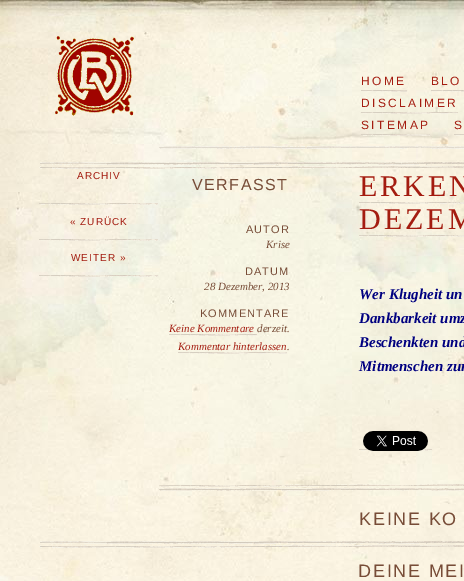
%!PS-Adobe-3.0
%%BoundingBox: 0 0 464 581
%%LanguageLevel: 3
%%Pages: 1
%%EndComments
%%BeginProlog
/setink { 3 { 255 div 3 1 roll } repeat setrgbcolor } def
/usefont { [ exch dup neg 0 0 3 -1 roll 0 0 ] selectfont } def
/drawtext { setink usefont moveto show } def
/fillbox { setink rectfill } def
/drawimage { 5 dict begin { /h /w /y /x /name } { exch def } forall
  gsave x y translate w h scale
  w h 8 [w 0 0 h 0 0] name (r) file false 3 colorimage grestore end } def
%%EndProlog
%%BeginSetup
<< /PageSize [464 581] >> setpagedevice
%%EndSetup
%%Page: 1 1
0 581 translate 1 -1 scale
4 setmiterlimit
0 0 464 581 255 255 255 fillbox
(assets/img1.rgb) 0 0 464 144 drawimage
(assets/img9.rgb) 0 144 464 437 drawimage
(assets/img2.rgb) 39 162 425 7 drawimage
(assets/img3.rgb) 55 36 79 80 drawimage
(assets/img4.rgb) 361 90 46 2 drawimage
/LiberationSans-Regular 12 usefont
164 28 16 setink
361 85 moveto 2.4 0 (HOME) ashow
(assets/img5.rgb) 431 90 33 2 drawimage
431 85 moveto 2.4 0 (BLO) ashow
(assets/img6.rgb) 361 112 97 2 drawimage
361 107 moveto 2.4 0 (DISCLAIMER) ashow
(assets/img7.rgb) 361 134 69 2 drawimage
361 129 moveto 2.4 0 (SITEMAP) ashow
(assets/img8.rgb) 454 134 10 2 drawimage
454 129 moveto 2.4 0 (S) ashow
(assets/img10.rgb) 39 203 119 2 drawimage
/LiberationSans-Regular 10 usefont
77 179 moveto 1 0 (ARCHIV) ashow
(assets/img11.rgb) 39 239 119 2 drawimage
70 225 moveto 1 0 (« ZURÜCK) ashow
(assets/img12.rgb) 39 275 119 2 drawimage
71 261 moveto 1 0 (WEITER ») ashow
(assets/img13.rgb) 159 146 305 3 drawimage
/LiberationSans-Regular 16 usefont
119 76 55 setink
192 190 moveto 1.5 0 (VERFASST) ashow
/LiberationSans-Regular 11 usefont
246 233 moveto 1.1 0 (AUTOR) ashow
(Krise) 266 248 /LiberationSerif-Italic 11 119 76 55 drawtext
/LiberationSans-Regular 11 usefont
245 275 moveto 1.1 0 (DATUM) ashow
(28 Dezember, 2013) 204 290 /LiberationSerif-Italic 11 119 76 55 drawtext
/LiberationSans-Regular 11 usefont
200 317 moveto 1.1 0 (KOMMENTARE) ashow
(Keine Kommentare) 169 332 /LiberationSerif-Italic 11 164 28 16 drawtext
(derzeit.) 257 332 /LiberationSerif-Italic 11 119 76 55 drawtext
(assets/img14.rgb) 169 334 88 2 drawimage
(Kommentar hinterlassen) 178 350 /LiberationSerif-Italic 11 164 28 16 drawtext
(.) 287 350 /LiberationSerif-Italic 11 119 76 55 drawtext
(assets/img15.rgb) 178 352 109 2 drawimage
/LiberationSerif-Regular 30 usefont
164 28 16 setink
359 196 moveto 3 0 (ERKEN) ashow
(assets/img16.rgb) 359 202 105 35 drawimage
359 229 moveto 3 0 (DEZEM) ashow
(Wer Klugheit un) 359 299 /LiberationSerif-BoldItalic 15 0 0 128 drawtext
(Dankbarkeit umz) 359 323 /LiberationSerif-BoldItalic 15 0 0 128 drawtext
(Beschenkten und) 359 347 /LiberationSerif-BoldItalic 15 0 0 128 drawtext
(Mitmenschen zur) 359 371 /LiberationSerif-BoldItalic 15 0 0 128 drawtext
(assets/img17.rgb) 359 449 73 2 drawimage
(assets/img18.rgb) 363 431 65 20 drawimage
(assets/img19.rgb) 159 484 305 7 drawimage
/LiberationSans-Regular 18 usefont
119 76 55 setink
359 525 moveto 1.75 0 (KEINE KO) ashow
(assets/img20.rgb) 39 541 425 7 drawimage
358 577 moveto 1.75 0 (DEINE MEI) ashow
showpage
%%EOF
